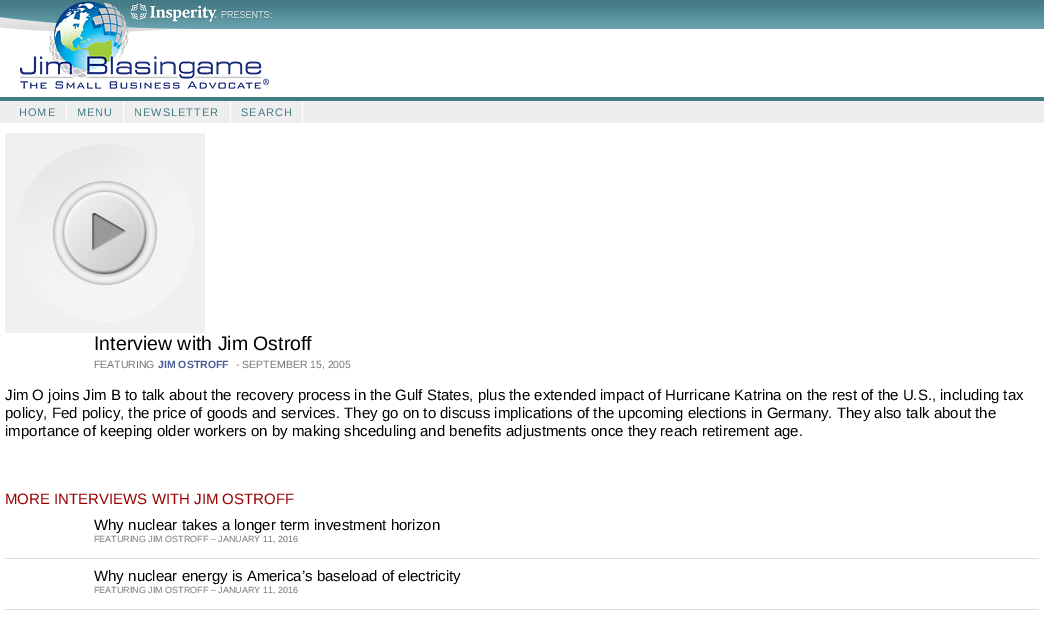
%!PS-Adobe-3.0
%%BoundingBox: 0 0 1044 617
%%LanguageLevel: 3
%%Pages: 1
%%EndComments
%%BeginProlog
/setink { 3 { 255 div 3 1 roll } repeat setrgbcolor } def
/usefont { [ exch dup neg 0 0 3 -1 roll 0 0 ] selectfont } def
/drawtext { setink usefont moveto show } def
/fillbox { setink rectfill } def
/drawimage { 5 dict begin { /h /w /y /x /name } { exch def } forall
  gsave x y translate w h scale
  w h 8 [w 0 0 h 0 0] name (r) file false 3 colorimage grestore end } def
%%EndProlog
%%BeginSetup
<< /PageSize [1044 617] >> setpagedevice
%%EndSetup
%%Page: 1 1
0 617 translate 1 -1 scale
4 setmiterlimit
0 0 1044 617 255 255 255 fillbox
(assets/img1.rgb) 0 0 1044 101 drawimage
(assets/img2.rgb) 0 1 272 88 drawimage
0 101 1044 22 238 238 238 fillbox
66 101 1 22 255 255 255 fillbox
/LiberationSans-Regular 11 usefont
67 122 133 setink
19 116 moveto 1 0 (HOME) ashow
123 101 1 22 255 255 255 fillbox
67 122 133 setink
77 116 moveto 1 0 (MENU) ashow
230 101 1 22 255 255 255 fillbox
67 122 133 setink
134 116 moveto 1 0 (NEWSLETTER) ashow
302 101 1 22 255 255 255 fillbox
67 122 133 setink
241 116 moveto 1 0 (SEARCH) ashow
(assets/img3.rgb) 5 133 200 200 drawimage
(assets/img4.rgb) 91 209 35 44 drawimage
(Interview with Jim Ostroff) 94 350 /LiberationSans-Regular 19.5 0 0 0 drawtext
(FEATURING) 94 368 /LiberationSans-Regular 10.5 119 119 119 drawtext
(JIM OSTROFF) 158 368 /LiberationSans-Bold 10.5 76 92 153 drawtext
(- SEPTEMBER 15, 2005) 236 368 /LiberationSans-Regular 10.5 119 119 119 drawtext
(Jim O joins Jim B to talk about the recovery process in the Gulf States, plus the extended impact of Hurricane Katrina on the rest of the U.S., including tax) 5 400 /LiberationSans-Regular 15 0 0 0 drawtext
(policy, Fed policy, the price of goods and services. They go on to discuss implications of the upcoming elections in Germany. They also talk about the) 5 418 /LiberationSans-Regular 15 0 0 0 drawtext
(importance of keeping older workers on by making shceduling and benefits adjustments once they reach retirement age.) 5 436 /LiberationSans-Regular 15 0 0 0 drawtext
(MORE INTERVIEWS WITH JIM OSTROFF) 5 504 /LiberationSans-Regular 15 153 0 0 drawtext
5 558 1034 1 221 221 221 fillbox
(Why nuclear takes a longer term investment horizon) 94 530 /LiberationSans-Regular 15 0 0 0 drawtext
(FEATURING JIM OSTROFF – JANUARY 11, 2016) 94 542 /LiberationSans-Regular 9 119 119 119 drawtext
5 609 1034 1 221 221 221 fillbox
(Why nuclear energy is America’s baseload of electricity) 94 581 /LiberationSans-Regular 15 0 0 0 drawtext
(FEATURING JIM OSTROFF – JANUARY 11, 2016) 94 593 /LiberationSans-Regular 9 119 119 119 drawtext
showpage
%%EOF
